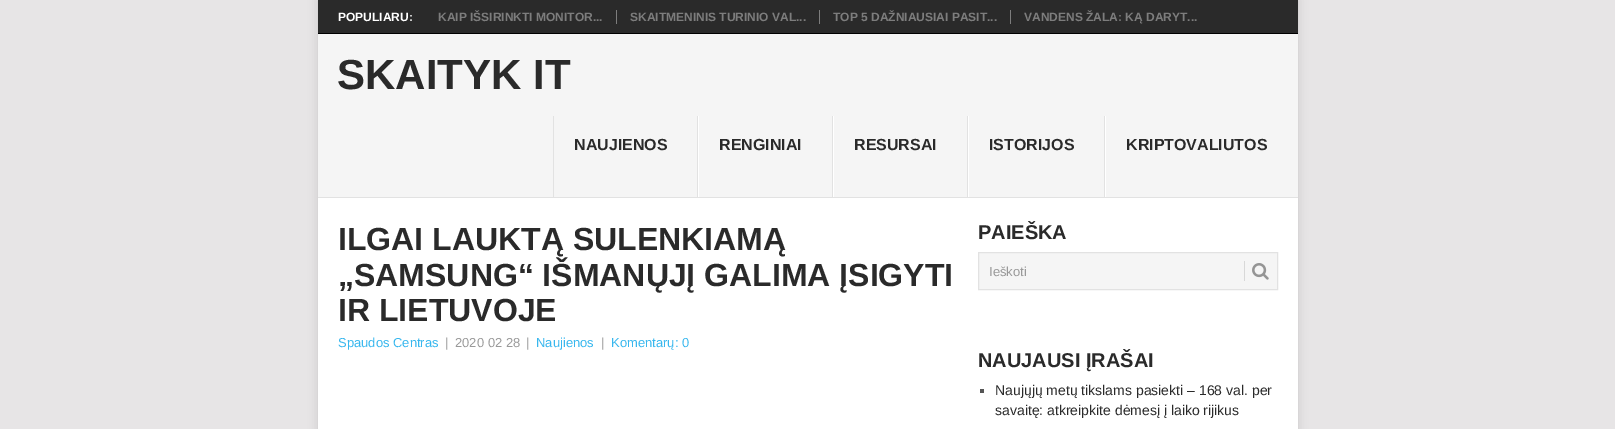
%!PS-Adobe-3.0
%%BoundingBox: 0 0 1615 429
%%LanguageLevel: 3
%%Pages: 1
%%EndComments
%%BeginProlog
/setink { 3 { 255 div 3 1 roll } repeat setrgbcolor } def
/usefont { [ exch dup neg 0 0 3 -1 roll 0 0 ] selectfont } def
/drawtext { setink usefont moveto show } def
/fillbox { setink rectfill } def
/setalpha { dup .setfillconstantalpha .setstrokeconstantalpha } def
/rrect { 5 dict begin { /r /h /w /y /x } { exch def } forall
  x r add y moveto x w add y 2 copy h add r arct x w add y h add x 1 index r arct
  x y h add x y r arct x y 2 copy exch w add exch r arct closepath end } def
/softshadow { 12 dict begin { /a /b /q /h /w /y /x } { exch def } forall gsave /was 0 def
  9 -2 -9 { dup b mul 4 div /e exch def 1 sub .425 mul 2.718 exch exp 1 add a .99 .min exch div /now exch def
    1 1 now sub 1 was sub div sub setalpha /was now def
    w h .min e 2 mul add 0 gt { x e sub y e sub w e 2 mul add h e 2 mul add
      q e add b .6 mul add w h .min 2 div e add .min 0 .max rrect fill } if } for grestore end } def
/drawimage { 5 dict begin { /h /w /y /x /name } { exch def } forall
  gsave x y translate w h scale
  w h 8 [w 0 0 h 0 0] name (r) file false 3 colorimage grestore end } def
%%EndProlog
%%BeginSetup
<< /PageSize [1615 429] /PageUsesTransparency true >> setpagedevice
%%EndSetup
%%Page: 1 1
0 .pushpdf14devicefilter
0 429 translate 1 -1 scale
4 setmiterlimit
0 0 1615 429 231 229 230 fillbox
50 50 50 setink
318 0 980 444 0 5 0.17 softshadow
318 198 980 231 255 255 255 fillbox
318 0 980 33 42 42 42 fillbox
318 33 980 1 0 0 0 fillbox
(POPULIARU:) 338 21 /LiberationSans-Bold 12 255 255 255 drawtext
616 10 1 14 125 125 125 fillbox
(KAIP IŠSIRINKTI MONITOR...) 438 21 /LiberationSans-Bold 12 125 125 125 drawtext
819 10 1 14 125 125 125 fillbox
(SKAITMENINIS TURINIO VAL...) 630 21 /LiberationSans-Bold 12 125 125 125 drawtext
1010 10 1 14 125 125 125 fillbox
(TOP 5 DAŽNIAUSIAI PASIT...) 833 21 /LiberationSans-Bold 12 125 125 125 drawtext
(VANDENS ŽALA: KĄ DARYT...) 1024 21 /LiberationSans-Bold 12 125 125 125 drawtext
318 34 980 163 245 245 245 fillbox
(SKAITYK IT) 337 89 /LiberationSans-Bold 42 42 42 42 drawtext
697 116 1 82 226 226 226 fillbox
553 116 1 82 226 226 226 fillbox
(NAUJIENOS) 574 150 /LiberationSans-Bold 16 42 42 42 drawtext
832 116 1 82 226 226 226 fillbox
698 116 1 82 255 255 255 fillbox
(RENGINIAI) 719 150 /LiberationSans-Bold 16 42 42 42 drawtext
967 116 1 82 226 226 226 fillbox
833 116 1 82 255 255 255 fillbox
(RESURSAI) 854 150 /LiberationSans-Bold 16 42 42 42 drawtext
1104 116 1 82 226 226 226 fillbox
968 116 1 82 255 255 255 fillbox
(ISTORIJOS) 989 150 /LiberationSans-Bold 16 42 42 42 drawtext
1105 116 1 82 255 255 255 fillbox
(KRIPTOVALIUTOS) 1126 150 /LiberationSans-Bold 16 42 42 42 drawtext
318 197 980 1 226 226 226 fillbox
(ILGAI LAUKTĄ SULENKIAMĄ) 338 250 /LiberationSans-Bold 32 42 42 42 drawtext
(„SAMSUNG“ IŠMANŲJĮ GALIMA ĮSIGYTI) 338 286 /LiberationSans-Bold 32 42 42 42 drawtext
(IR LIETUVOJE) 338 321 /LiberationSans-Bold 32 42 42 42 drawtext
(Spaudos Centras) 338 347 /LiberationSans-Regular 13 56 183 238 drawtext
(|) 445 347 /LiberationSans-Regular 13 153 153 153 drawtext
(2020 02 28) 455 347 /LiberationSans-Regular 13 153 153 153 drawtext
(|) 526 347 /LiberationSans-Regular 13 153 153 153 drawtext
(Naujienos) 536 347 /LiberationSans-Regular 13 56 183 238 drawtext
(|) 601 347 /LiberationSans-Regular 13 153 153 153 drawtext
(Komentarų: 0) 611 347 /LiberationSans-Regular 13 56 183 238 drawtext
(PAIEŠKA) 978 239 /LiberationSans-Bold 20 42 42 42 drawtext
245 245 245 setink
978.5 252.5 moveto 1277.5 252.5 lineto 1277.5 289.5 lineto 978.5 289.5 lineto closepath gsave fill grestore
226 226 226 setink
stroke
(Ieškoti) 989 276 /LiberationSans-Regular 13 153 153 153 drawtext
1244 261 1 20 216 216 216 fillbox
(assets/img1.rgb) 1252 263 17 17 drawimage
(NAUJAUSI ĮRAŠAI) 978 367 /LiberationSans-Bold 20 42 42 42 drawtext
980 389 4 4 85 85 85 fillbox
(Naujųjų metų tikslams pasiekti – 168 val. per) 995 395 /LiberationSans-Regular 14 42 42 42 drawtext
(savaitę: atkreipkite dėmesį į laiko rijikus) 995 415 /LiberationSans-Regular 14 42 42 42 drawtext
.poppdf14devicefilter showpage
%%EOF
